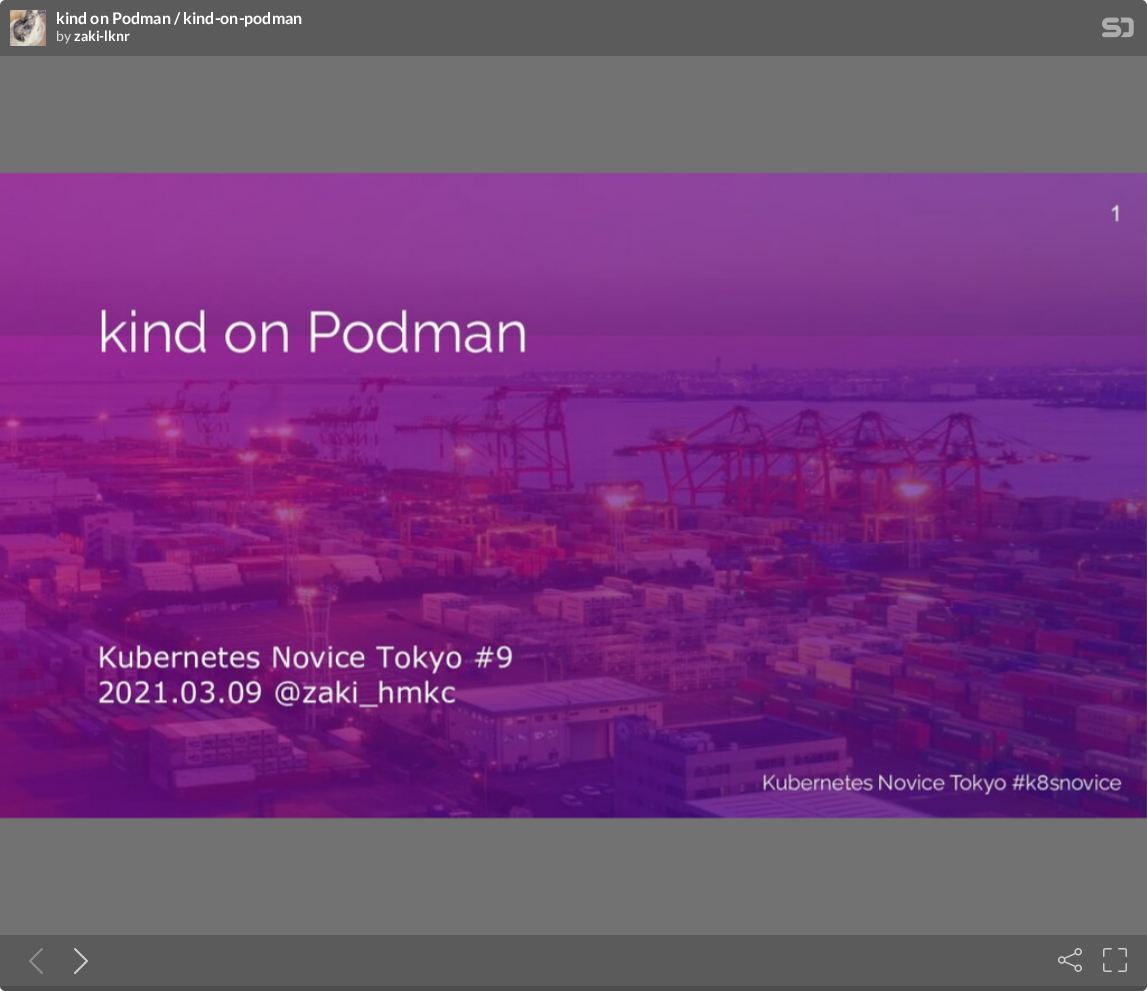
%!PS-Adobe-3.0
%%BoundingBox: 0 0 1147 991
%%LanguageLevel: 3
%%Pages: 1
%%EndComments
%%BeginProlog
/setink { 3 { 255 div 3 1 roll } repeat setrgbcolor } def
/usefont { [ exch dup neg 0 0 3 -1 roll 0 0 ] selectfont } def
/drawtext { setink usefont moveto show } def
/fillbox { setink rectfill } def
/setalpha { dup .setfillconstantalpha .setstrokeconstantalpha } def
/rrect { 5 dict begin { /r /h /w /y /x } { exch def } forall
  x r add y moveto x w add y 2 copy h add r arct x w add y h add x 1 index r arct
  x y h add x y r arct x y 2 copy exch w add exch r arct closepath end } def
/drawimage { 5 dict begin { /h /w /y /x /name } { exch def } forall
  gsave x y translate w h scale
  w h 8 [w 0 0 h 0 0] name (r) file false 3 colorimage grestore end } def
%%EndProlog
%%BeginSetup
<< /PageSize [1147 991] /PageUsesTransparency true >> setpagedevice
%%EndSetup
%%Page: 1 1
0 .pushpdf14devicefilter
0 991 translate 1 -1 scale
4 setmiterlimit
0 0 1147 991 255 255 255 fillbox
114 114 114 setink
0 0 1147 991 6 rrect fill
(assets/img1.rgb) 0 172 1147 647 drawimage
0.2 setalpha
0 0 0 setink
6 0 moveto 1141 0 lineto 1144.5 0 1147 2.5 1147 6 curveto 1147 56 lineto 0 56 lineto 0 6 lineto 0 2.5 2.5 0 6 0 curveto closepath fill
1 setalpha
(assets/img2.rgb) 10 10 36 36 drawimage
(kind on Podman / kind-on-podman) 56 24 /Lato-Bold 16 255 255 255 drawtext
(assets/img3.rgb) 1102 17 32 21 drawimage
(by) 56 41 /Lato-Regular 14 222 222 222 drawtext
(zaki-lknr) 74 41 /Lato-Bold 14 255 255 255 drawtext
0.2 setalpha
0 0 0 setink
0 935 moveto 1147 935 lineto 1147 985 lineto 1147 988.5 1144.5 991 1141 991 curveto 6 991 lineto 2.5 991 0 988.5 0 985 curveto closepath fill
1 setalpha
(assets/img4.rgb) 29 948 14 26 drawimage
(assets/img5.rgb) 74 948 14 26 drawimage
(assets/img6.rgb) 1058 948 24 24 drawimage
(assets/img7.rgb) 1103 948 24 24 drawimage
gsave
0 0 1147 991 6 rrect clip newpath
0.15 setalpha
0 986 1147 5 0 0 0 fillbox
grestore
.poppdf14devicefilter showpage
%%EOF
